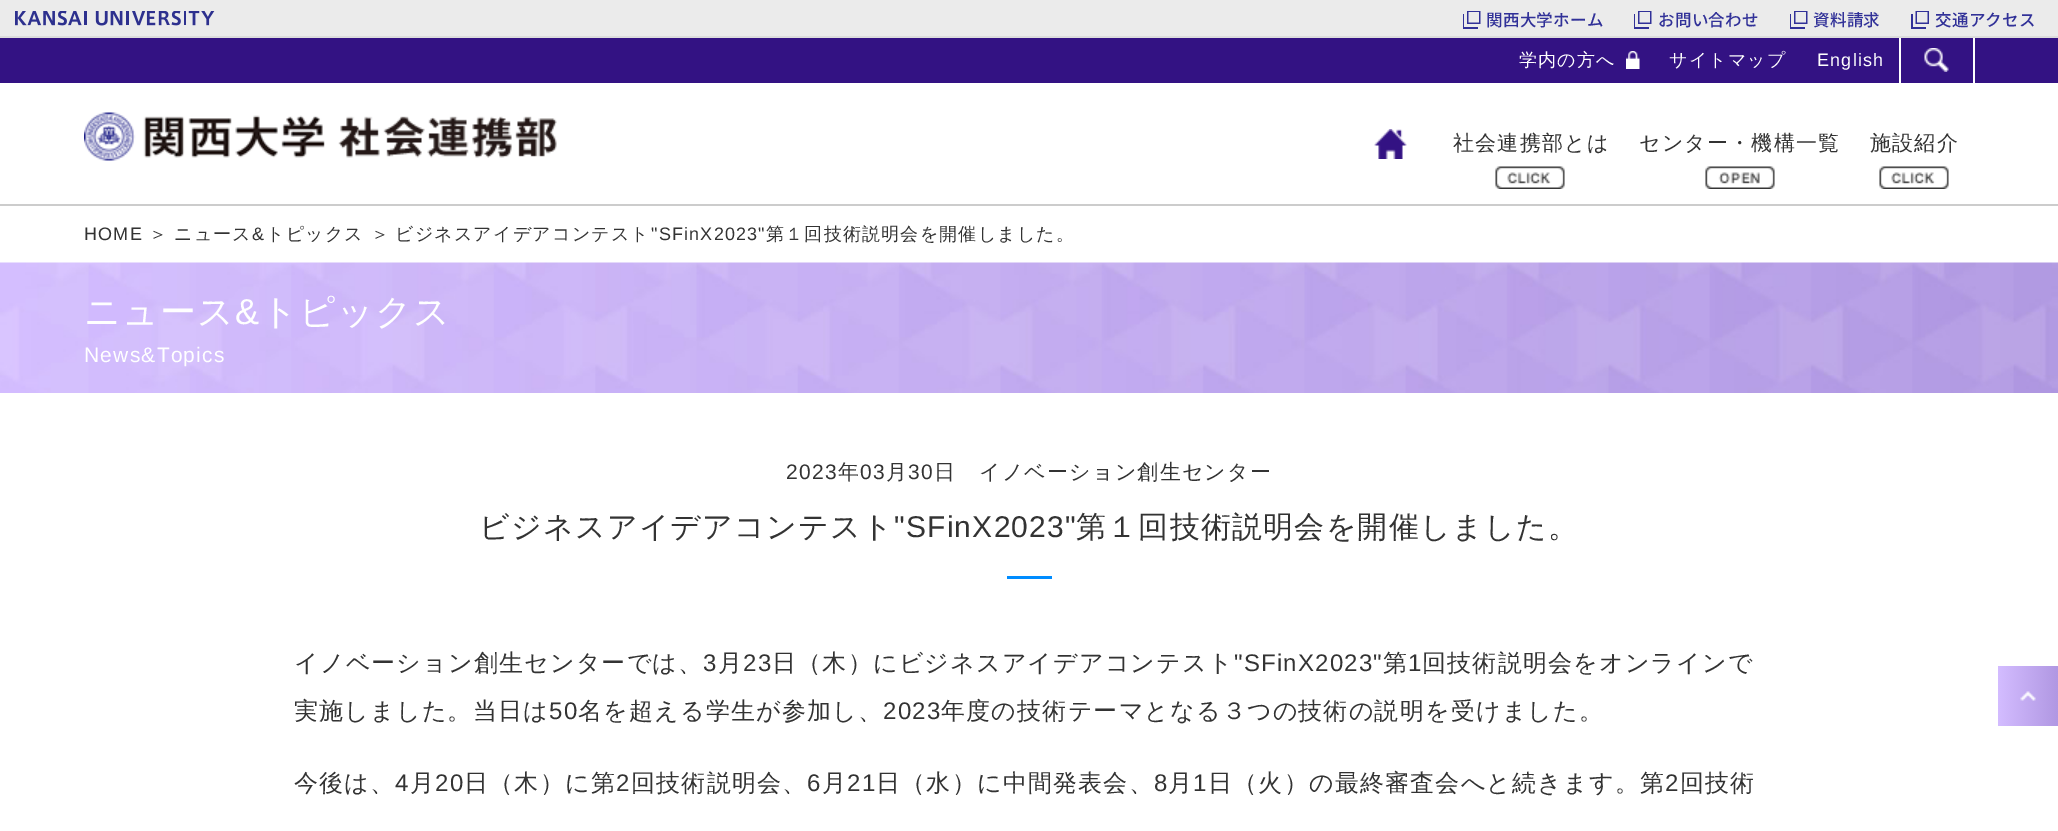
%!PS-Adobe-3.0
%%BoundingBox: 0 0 2058 831
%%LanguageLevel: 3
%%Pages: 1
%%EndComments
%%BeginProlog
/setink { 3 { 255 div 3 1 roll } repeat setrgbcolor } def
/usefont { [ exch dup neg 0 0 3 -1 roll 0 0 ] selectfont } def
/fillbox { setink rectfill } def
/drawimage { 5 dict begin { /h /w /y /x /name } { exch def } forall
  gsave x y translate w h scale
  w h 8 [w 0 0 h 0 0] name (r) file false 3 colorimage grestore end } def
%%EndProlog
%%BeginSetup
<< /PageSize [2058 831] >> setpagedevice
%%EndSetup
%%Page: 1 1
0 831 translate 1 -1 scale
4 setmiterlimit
0 0 2058 831 255 255 255 fillbox
0 0 2058 36 235 235 235 fillbox
0 36 2058 2 220 220 220 fillbox
(assets/img1.rgb) 15 11 200 15 drawimage
(assets/img2.rgb) 1463 11 18 18 drawimage
/NotoSansJP-Thin 16.5 usefont
49 49 152 setink
1486 26 moveto 0.25 0 (関西大学ホーム) ashow
(assets/img2.rgb) 1634 11 18 18 drawimage
1658 26 moveto 0.25 0 (お問い合わせ) ashow
(assets/img2.rgb) 1790 11 18 18 drawimage
1813 26 moveto 0.25 0 (資料請求) ashow
(assets/img3.rgb) 1911 11 18 18 drawimage
1935 26 moveto 0.25 0 (交通アクセス) ashow
0 204 2058 2 204 204 204 fillbox
0 38 2058 45 51 18 131 fillbox
/WenQuanYiZenHei-Medium 18 usefont
255 255 255 setink
1519 66 moveto 1.2 0 (学内の方へ) ashow
(assets/img4.rgb) 1626 51 14 18 drawimage
1669 66 moveto 1.2 0 (サイトマップ) ashow
/LiberationSans-Regular 18 usefont
1817 66 moveto 1.2 0 (English) ashow
1973 38 2 45 255 255 255 fillbox
1899 38 2 45 255 255 255 fillbox
(assets/img5.rgb) 1924 48 25 24 drawimage
(assets/img6.rgb) 84 112 473 49 drawimage
(assets/img7.rgb) 1374 129 33 30 drawimage
/WenQuanYiZenHei-Medium 21 usefont
51 51 51 setink
1453 150 moveto 1.2 0 (社会連携部とは) ashow
(assets/img8.rgb) 1495 166 70 23 drawimage
1639 150 moveto 1.2 0 (センター・機構一覧) ashow
(assets/img9.rgb) 1705 166 70 23 drawimage
1870 150 moveto 1.2 0 (施設紹介) ashow
(assets/img10.rgb) 1879 166 70 23 drawimage
/LiberationSans-Regular 18 usefont
84 240 moveto 1.2 0 (HOME) ashow
/WenQuanYiZenHei-Medium 18 usefont
149 240 moveto 1.2 0 (＞) ashow
174 240 moveto 1.2 0 (ニュース) ashow
/LiberationSans-Regular 18 usefont
252 240 moveto 1.2 0 (&) ashow
/WenQuanYiZenHei-Medium 18 usefont
266 240 moveto 1.2 0 (トピックス ＞) ashow
395 240 moveto 1.2 0 (ビジネスアイデアコンテスト) ashow
/LiberationSans-Regular 18 usefont
651 240 moveto 1.2 0 ("SFinX2023") ashow
/WenQuanYiZenHei-Medium 18 usefont
766 240 moveto 1.2 0 (第１回技術説明会を開催しました。) ashow
(assets/img11.rgb) 0 262 2058 131 drawimage
/WenQuanYiZenHei-Medium 36 usefont
255 255 255 setink
84 324 moveto 1.2 0 (ニュース) ashow
/LiberationSans-Regular 36 usefont
235 324 moveto 1.2 0 (&) ashow
/WenQuanYiZenHei-Medium 36 usefont
261 324 moveto 1.2 0 (トピックス) ashow
/LiberationSans-Regular 21 usefont
84 362 moveto 1.2 0 (News&Topics) ashow
51 51 51 setink
786 479 moveto 1.2 0 (2023) ashow
/WenQuanYiZenHei-Medium 21 usefont
838 479 moveto 1.2 0 (年) ashow
/LiberationSans-Regular 21 usefont
860 479 moveto 1.2 0 (03) ashow
/WenQuanYiZenHei-Medium 21 usefont
886 479 moveto 1.2 0 (月) ashow
/LiberationSans-Regular 21 usefont
908 479 moveto 1.2 0 (30) ashow
/WenQuanYiZenHei-Medium 21 usefont
934 479 moveto 1.2 0 (日) ashow
979 479 moveto 1.2 0 (イノベーション創生センター) ashow
/WenQuanYiZenHei-Medium 30 usefont
479 537 moveto 1.2 0 (ビジネスアイデアコンテスト) ashow
/LiberationSans-Regular 30 usefont
894 537 moveto 1.2 0 ("SFinX2023") ashow
/WenQuanYiZenHei-Medium 30 usefont
1076 537 moveto 1.2 0 (第１回技術説明会を開催しました。) ashow
1007 576 45 3 0 140 255 fillbox
/WenQuanYiZenHei-Medium 24 usefont
51 51 51 setink
294 671 moveto 1.2 0 (イノベーション創生センターでは、) ashow
/LiberationSans-Regular 24 usefont
703 671 moveto 1.2 0 (3) ashow
/WenQuanYiZenHei-Medium 24 usefont
718 671 moveto 1.2 0 (月) ashow
/LiberationSans-Regular 24 usefont
743 671 moveto 1.2 0 (23) ashow
/WenQuanYiZenHei-Medium 24 usefont
772 671 moveto 1.2 0 (日（木）にビジネスアイデアコンテスト) ashow
/LiberationSans-Regular 24 usefont
1234 671 moveto 1.2 0 ("SFinX2023") ashow
/WenQuanYiZenHei-Medium 24 usefont
1383 671 moveto 1.2 0 (第) ashow
/LiberationSans-Regular 24 usefont
1408 671 moveto 1.2 0 (1) ashow
/WenQuanYiZenHei-Medium 24 usefont
1422 671 moveto 1.2 0 (回技術説明会をオンラインで) ashow
294 719 moveto 1.2 0 (実施しました。当日は) ashow
/LiberationSans-Regular 24 usefont
549 719 moveto 1.2 0 (50) ashow
/WenQuanYiZenHei-Medium 24 usefont
578 719 moveto 1.2 0 (名を超える学生が参加し、) ashow
/LiberationSans-Regular 24 usefont
883 719 moveto 1.2 0 (2023) ashow
/WenQuanYiZenHei-Medium 24 usefont
941 719 moveto 1.2 0 (年度の技術テーマとなる３つの技術の説明を受けました。) ashow
294 791 moveto 1.2 0 (今後は、) ashow
/LiberationSans-Regular 24 usefont
395 791 moveto 1.2 0 (4) ashow
/WenQuanYiZenHei-Medium 24 usefont
410 791 moveto 1.2 0 (月) ashow
/LiberationSans-Regular 24 usefont
435 791 moveto 1.2 0 (20) ashow
/WenQuanYiZenHei-Medium 24 usefont
464 791 moveto 1.2 0 (日（木）に第) ashow
/LiberationSans-Regular 24 usefont
616 791 moveto 1.2 0 (2) ashow
/WenQuanYiZenHei-Medium 24 usefont
631 791 moveto 1.2 0 (回技術説明会、) ashow
/LiberationSans-Regular 24 usefont
807 791 moveto 1.2 0 (6) ashow
/WenQuanYiZenHei-Medium 24 usefont
822 791 moveto 1.2 0 (月) ashow
/LiberationSans-Regular 24 usefont
847 791 moveto 1.2 0 (21) ashow
/WenQuanYiZenHei-Medium 24 usefont
876 791 moveto 1.2 0 (日（水）に中間発表会、) ashow
/LiberationSans-Regular 24 usefont
1154 791 moveto 1.2 0 (8) ashow
/WenQuanYiZenHei-Medium 24 usefont
1168 791 moveto 1.2 0 (月) ashow
/LiberationSans-Regular 24 usefont
1193 791 moveto 1.2 0 (1) ashow
/WenQuanYiZenHei-Medium 24 usefont
1208 791 moveto 1.2 0 (日（火）の最終審査会へと続きます。第) ashow
/LiberationSans-Regular 24 usefont
1665 791 moveto 1.2 0 (2) ashow
/WenQuanYiZenHei-Medium 24 usefont
1680 791 moveto 1.2 0 (回技術) ashow
(assets/img12.rgb) 1998 666 60 60 drawimage
showpage
%%EOF
